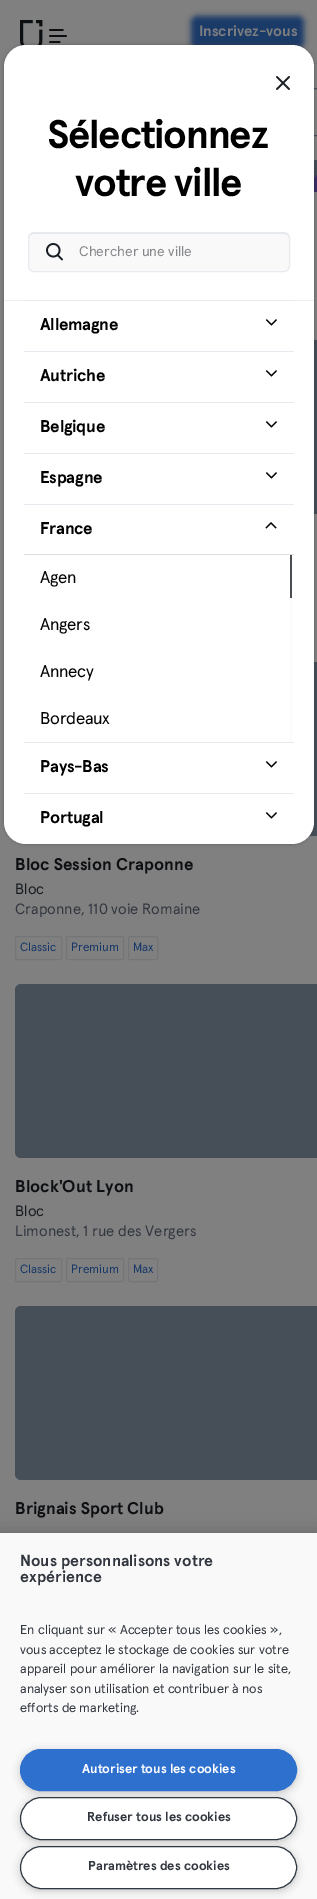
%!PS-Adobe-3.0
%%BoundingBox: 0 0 317 1899
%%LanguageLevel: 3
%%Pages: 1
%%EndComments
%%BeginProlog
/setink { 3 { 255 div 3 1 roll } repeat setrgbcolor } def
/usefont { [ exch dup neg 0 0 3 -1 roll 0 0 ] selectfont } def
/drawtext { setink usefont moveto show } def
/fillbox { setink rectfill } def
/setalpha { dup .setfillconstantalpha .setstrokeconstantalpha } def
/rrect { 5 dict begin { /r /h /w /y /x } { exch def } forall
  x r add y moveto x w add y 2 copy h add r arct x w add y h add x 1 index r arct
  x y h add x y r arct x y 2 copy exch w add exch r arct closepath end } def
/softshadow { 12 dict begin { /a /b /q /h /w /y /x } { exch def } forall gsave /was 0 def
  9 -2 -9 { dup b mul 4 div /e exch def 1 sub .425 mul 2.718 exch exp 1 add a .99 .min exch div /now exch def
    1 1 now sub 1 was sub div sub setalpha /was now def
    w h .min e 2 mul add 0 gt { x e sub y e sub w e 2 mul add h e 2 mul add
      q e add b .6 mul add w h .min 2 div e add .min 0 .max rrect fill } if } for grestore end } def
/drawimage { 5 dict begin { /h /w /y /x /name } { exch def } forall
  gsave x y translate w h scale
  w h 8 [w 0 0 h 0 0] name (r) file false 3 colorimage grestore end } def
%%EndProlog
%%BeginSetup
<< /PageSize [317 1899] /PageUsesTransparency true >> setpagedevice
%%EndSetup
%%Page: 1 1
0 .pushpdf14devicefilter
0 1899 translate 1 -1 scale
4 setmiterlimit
0 0 317 1899 128 128 128 fillbox
311 56 6 123 70 78 88 fillbox
128 128 128 setink
0 0 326 64 0 3 1 softshadow
0 0 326 64 0 3 1 softshadow
(assets/img1.rgb) 20 20 23 26 drawimage
(assets/img2.rgb) 49 29 18 14 drawimage
23 56 103 setink
191 16 113 32 6 3 1 softshadow
/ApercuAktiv-Bold 15 usefont
123 124 127 setink
199 36 moveto -0.1 0 (Inscrivez-vous) ashow
311 64 6 96 128 128 128 fillbox
70 78 88 setink
245.5 88.5 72 47 rectstroke
61 46 102 setink
300 192 moveto 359 134 lineto 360 135 lineto 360 186 lineto 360 189 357 192 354 192 curveto closepath fill
314 340 3 174 70 78 88 fillbox
309 662 8 174 70 78 88 fillbox
0 0 0 setink
4 45 310 799 22 2 0.28 softshadow
255 255 255 setink
4 45 310 799 22 rrect fill
(assets/img3.rgb) 276 76 14 14 drawimage
/ApercuAktiv-Bold 40 usefont
0 0 0 setink
48 148 moveto -1.25 0 (Sélectionnez) ashow
75 196 moveto -1.25 0 (votre ville) ashow
249 249 249 setink
28 232 262 40 6 rrect fill
230 230 230 setink
34 234 moveto 284 234 lineto 287 234 289 236 289 239 curveto 289 236 287 233 284 233 curveto 34 233 lineto 31 233 29 236 29 239 curveto 29 236 31 234 34 234 curveto closepath fill
231 234 238 setink
28.5 232.5 261 39 5.5 rrect stroke
(assets/img4.rgb) 46 243 17 18 drawimage
(Chercher une ville) 79 256 /ApercuAktiv-Regular 14 134 135 138 drawtext
4 300 310 1 238 238 238 fillbox
24 300 270 1 231 234 238 fillbox
/ApercuAktiv-Bold 17 usefont
0 0 0 setink
40 330 moveto -0.25 0 (Allemagne) ashow
(assets/img5.rgb) 265 319 12 7 drawimage
24 351 270 1 231 234 238 fillbox
0 0 0 setink
40 381 moveto -0.25 0 (Autriche) ashow
(assets/img5.rgb) 265 370 12 7 drawimage
24 402 270 1 231 234 238 fillbox
0 0 0 setink
40 432 moveto -0.25 0 (Belgique) ashow
(assets/img5.rgb) 265 421 12 7 drawimage
24 453 270 1 231 234 238 fillbox
0 0 0 setink
40 483 moveto -0.25 0 (Espagne) ashow
(assets/img5.rgb) 265 472 12 7 drawimage
24 504 270 1 231 234 238 fillbox
0 0 0 setink
40 534 moveto -0.25 0 (France) ashow
(assets/img6.rgb) 265 522 12 7 drawimage
24 554 270 1 221 221 221 fillbox
/ApercuAktiv-Regular 17 usefont
0 0 0 setink
40 583 moveto -0.25 0 (Agen) ashow
40 630 moveto -0.25 0 (Angers) ashow
40 677 moveto -0.25 0 (Annecy) ashow
40 724 moveto -0.25 0 (Bordeaux) ashow
290 555 2 43 74 77 81 fillbox
290 598 2 144 252 251 250 fillbox
24 742 270 1 231 234 238 fillbox
/ApercuAktiv-Bold 17 usefont
0 0 0 setink
40 772 moveto -0.25 0 (Pays-Bas) ashow
(assets/img5.rgb) 265 761 12 7 drawimage
24 843 270 1 255 255 255 fillbox
24 793 270 1 231 234 238 fillbox
0 0 0 setink
40 823 moveto -0.25 0 (Portugal) ashow
(assets/img5.rgb) 265 812 12 7 drawimage
(Bloc Session Craponne) 15 870 /ApercuAktiv-Bold 17 13 15 18 drawtext
(Bloc) 15 894 /ApercuAktiv-Regular 15 23 28 33 drawtext
(Craponne, 110 voie Romaine) 15 914 /ApercuAktiv-Regular 15 50 55 63 drawtext
116 117 119 setink
15.5 936.5 46 23 1.5 rrect stroke
(Classic) 20 951 /ApercuAktiv-Regular 12 23 56 103 drawtext
116 117 119 setink
66.5 936.5 57 23 1.5 rrect stroke
(Premium) 71 951 /ApercuAktiv-Regular 12 23 56 103 drawtext
116 117 119 setink
128.5 936.5 29 23 1.5 rrect stroke
(Max) 133 951 /ApercuAktiv-Regular 12 23 56 103 drawtext
70 78 88 setink
15 984 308 174 6 rrect fill
(Block'Out Lyon) 15 1192 /ApercuAktiv-Bold 17 13 15 18 drawtext
(Bloc) 15 1216 /ApercuAktiv-Regular 15 23 28 33 drawtext
(Limonest, 1 rue des Vergers) 15 1236 /ApercuAktiv-Regular 15 50 55 63 drawtext
116 117 119 setink
15.5 1258.5 46 23 1.5 rrect stroke
(Classic) 20 1273 /ApercuAktiv-Regular 12 23 56 103 drawtext
116 117 119 setink
66.5 1258.5 57 23 1.5 rrect stroke
(Premium) 71 1273 /ApercuAktiv-Regular 12 23 56 103 drawtext
116 117 119 setink
128.5 1258.5 29 23 1.5 rrect stroke
(Max) 133 1273 /ApercuAktiv-Regular 12 23 56 103 drawtext
70 78 88 setink
15 1306 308 174 6 rrect fill
(Brignais Sport Club) 15 1514 /ApercuAktiv-Bold 17 13 15 18 drawtext
0 0 0 setink
0 1533 317 366 0 9 0.2 softshadow
0 1533 317 366 249 249 249 fillbox
(Nous personnalisons votre) 20 1566 /ApercuAktiv-Bold 16 50 55 63 drawtext
(expérience) 20 1582 /ApercuAktiv-Bold 16 50 55 63 drawtext
(En cliquant sur « Accepter tous les cookies »,) 20 1634 /ApercuAktiv-Regular 13 50 55 63 drawtext
(vous acceptez le stockage de cookies sur votre) 20 1654 /ApercuAktiv-Regular 13 50 55 63 drawtext
(appareil pour améliorer la navigation sur le site,) 20 1673 /ApercuAktiv-Regular 13 50 55 63 drawtext
(analyser son utilisation et contribuer à nos) 20 1693 /ApercuAktiv-Regular 13 50 55 63 drawtext
(efforts de marketing.) 20 1712 /ApercuAktiv-Regular 13 50 55 63 drawtext
153 153 153 setink
23 1754 271 36 18 5 1 softshadow
46 112 206 setink
20.5 1749.5 276 41 20.5 rrect gsave fill grestore
stroke
(Autoriser tous les cookies) 82 1773 /ApercuAktiv-Bold 13 255 255 255 drawtext
153 153 153 setink
23 1802 271 37 18.5 5 1 softshadow
255 255 255 setink
20.5 1797.5 276 42 21 rrect gsave fill grestore
46 55 66 setink
stroke
(Refuser tous les cookies) 87 1821 /ApercuAktiv-Bold 13 50 55 63 drawtext
153 153 153 setink
23 1851 271 37 18.5 5 1 softshadow
255 255 255 setink
20.5 1846.5 276 42 21 rrect gsave fill grestore
46 55 66 setink
stroke
(Paramètres des cookies) 88 1870 /ApercuAktiv-Bold 13 50 55 63 drawtext
.poppdf14devicefilter showpage
%%EOF
